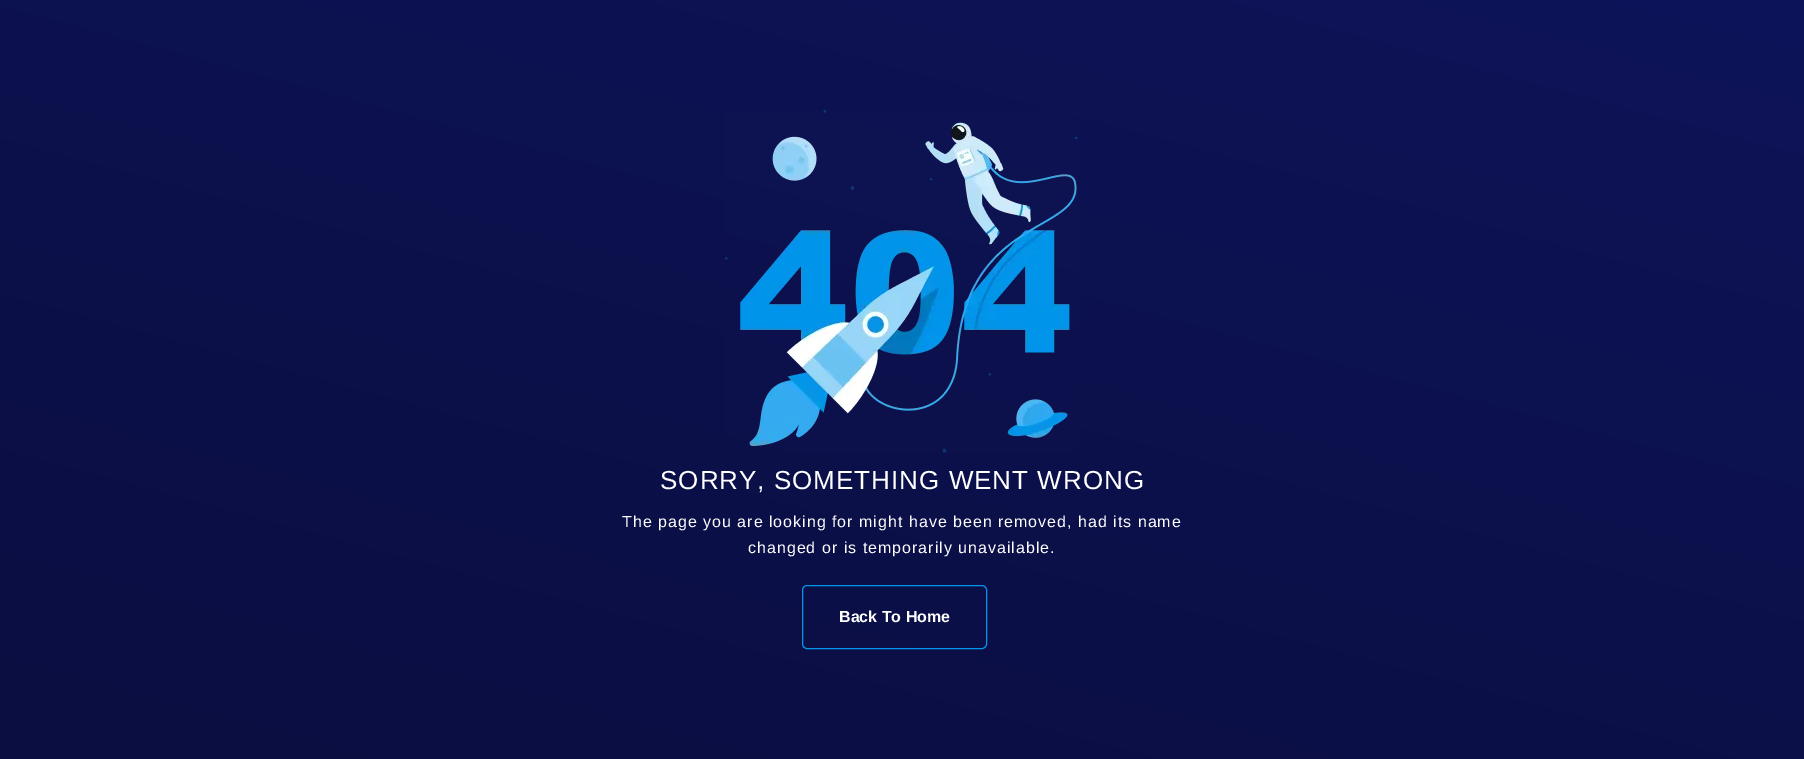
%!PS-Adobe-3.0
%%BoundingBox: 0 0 1804 759
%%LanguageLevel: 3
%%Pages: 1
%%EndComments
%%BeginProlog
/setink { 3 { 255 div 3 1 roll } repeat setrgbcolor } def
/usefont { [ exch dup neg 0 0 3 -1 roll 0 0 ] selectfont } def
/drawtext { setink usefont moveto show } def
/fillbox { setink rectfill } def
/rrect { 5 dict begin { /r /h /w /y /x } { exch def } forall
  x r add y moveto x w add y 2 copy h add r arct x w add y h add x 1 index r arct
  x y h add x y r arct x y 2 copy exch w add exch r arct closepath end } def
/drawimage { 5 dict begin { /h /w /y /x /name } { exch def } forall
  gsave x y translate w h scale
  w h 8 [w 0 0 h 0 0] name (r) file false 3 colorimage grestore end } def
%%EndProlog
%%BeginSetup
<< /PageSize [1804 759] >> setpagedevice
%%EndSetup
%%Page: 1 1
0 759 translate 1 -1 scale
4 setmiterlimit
0 0 1804 759 255 255 255 fillbox
gsave 0 0 moveto 1804 0 lineto 1804 759 lineto 0 759 lineto closepath clip newpath
<< /ShadingType 2 /ColorSpace /DeviceRGB /Coords [1057 -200 747 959] /Extend [true true] /Function << /FunctionType 2 /Domain [0 1] /C0 [0.055 0.078 0.349] /C1 [0.039 0.055 0.251] /N 1 >> >> shfill grestore
(assets/img1.rgb) 725 110 353 343 drawimage
/LiberationSans-Regular 26 usefont
660 489 moveto 1 0 (SORRY, SOMETHING WENT WRONG) ashow
/LiberationSans-Regular 16 usefont
622 527 moveto 1 0 (The page you are looking for might have been removed, had its name) ashow
748 553 moveto 1 0 (changed or is temporarily unavailable.) ashow
1 149 235 setink
802.5 585.5 184 63 4.5 rrect stroke
(Back To Home) 839 622 /LiberationSans-Bold 16 255 255 255 drawtext
showpage
%%EOF
